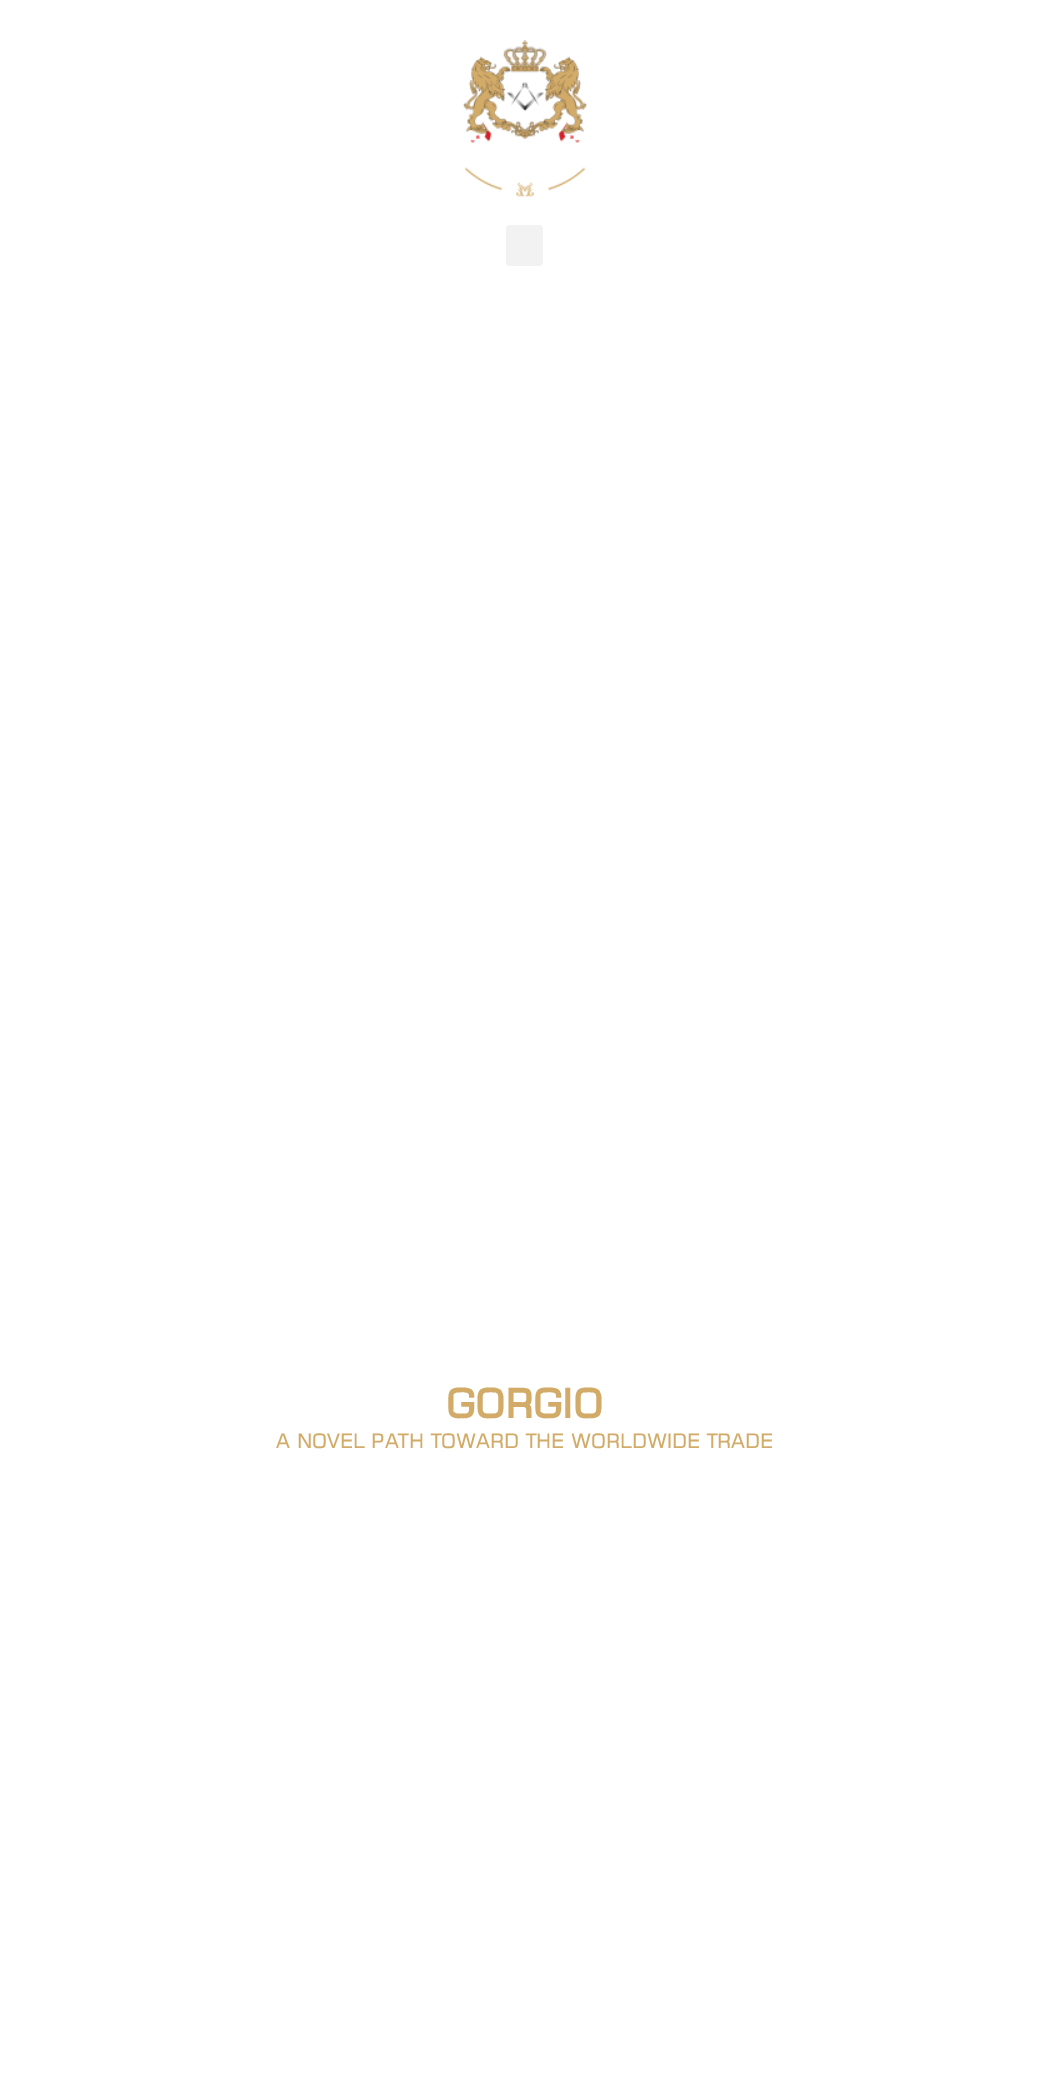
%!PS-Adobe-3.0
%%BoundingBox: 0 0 1048 2080
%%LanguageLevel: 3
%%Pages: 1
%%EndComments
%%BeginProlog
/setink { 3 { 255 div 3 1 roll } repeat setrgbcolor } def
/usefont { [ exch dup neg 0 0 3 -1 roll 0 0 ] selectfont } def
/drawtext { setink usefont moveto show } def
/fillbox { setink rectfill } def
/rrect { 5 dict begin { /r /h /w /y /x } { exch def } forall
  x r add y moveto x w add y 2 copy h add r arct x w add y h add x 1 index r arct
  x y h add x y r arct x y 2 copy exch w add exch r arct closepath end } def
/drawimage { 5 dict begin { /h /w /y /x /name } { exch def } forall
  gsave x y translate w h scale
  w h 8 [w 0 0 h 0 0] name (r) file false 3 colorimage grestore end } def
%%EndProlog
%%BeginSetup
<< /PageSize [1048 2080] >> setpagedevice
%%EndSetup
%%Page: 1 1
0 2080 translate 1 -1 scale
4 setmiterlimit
0 0 1048 2080 255 255 255 fillbox
(assets/img1.rgb) 463 40 124 158 drawimage
242 242 242 setink
506 225 37 41 4 rrect fill
(GORGIO) 446 1418 /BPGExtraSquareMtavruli-Bold 40 210 171 105 drawtext
(A NOVEL PATH TOWARD THE WORLDWIDE TRADE) 276 1448 /BPGExtraSquareMtavruli-Regular 20 210 171 105 drawtext
showpage
%%EOF
